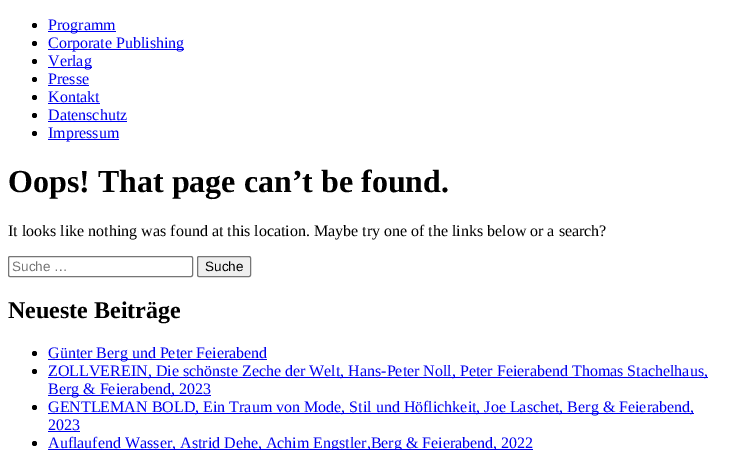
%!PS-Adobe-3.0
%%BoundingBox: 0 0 735 450
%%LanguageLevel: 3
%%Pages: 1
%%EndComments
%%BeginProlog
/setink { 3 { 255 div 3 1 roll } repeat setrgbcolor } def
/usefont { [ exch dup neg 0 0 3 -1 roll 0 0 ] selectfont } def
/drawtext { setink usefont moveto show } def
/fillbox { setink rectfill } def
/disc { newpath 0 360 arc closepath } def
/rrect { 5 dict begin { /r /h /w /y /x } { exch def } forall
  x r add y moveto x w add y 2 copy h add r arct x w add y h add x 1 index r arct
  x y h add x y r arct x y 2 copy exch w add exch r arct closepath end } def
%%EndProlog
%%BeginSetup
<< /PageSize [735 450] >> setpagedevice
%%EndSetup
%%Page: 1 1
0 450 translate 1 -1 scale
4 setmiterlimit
0 0 735 450 255 255 255 fillbox
0 0 0 setink
34.5 25.5 2.5 disc fill
48 31 68 1 0 0 238 fillbox
(Programm) 48 30 /LiberationSerif-Regular 16 0 0 238 drawtext
0 0 0 setink
34.5 43.5 2.5 disc fill
48 49 136 1 0 0 238 fillbox
(Corporate Publishing) 48 48 /LiberationSerif-Regular 16 0 0 238 drawtext
0 0 0 setink
34.5 61.5 2.5 disc fill
48 67 44 1 0 0 238 fillbox
(Verlag) 48 66 /LiberationSerif-Regular 16 0 0 238 drawtext
0 0 0 setink
34.5 79.5 2.5 disc fill
(Presse) 48 84 /LiberationSerif-Regular 16 0 0 238 drawtext
48 85 41 1 0 0 238 fillbox
0 0 0 setink
34.5 97.5 2.5 disc fill
(Kontakt) 48 102 /LiberationSerif-Regular 16 0 0 238 drawtext
48 103 52 1 0 0 238 fillbox
0 0 0 setink
34.5 115.5 2.5 disc fill
(Datenschutz) 48 120 /LiberationSerif-Regular 16 0 0 238 drawtext
48 121 79 1 0 0 238 fillbox
0 0 0 setink
34.5 133.5 2.5 disc fill
48 139 71 1 0 0 238 fillbox
(Impressum) 48 138 /LiberationSerif-Regular 16 0 0 238 drawtext
(Oops! That page can’t be found.) 8 192 /LiberationSerif-Bold 32 0 0 0 drawtext
(It looks like nothing was found at this location. Maybe try one of the links below or a search?) 8 236 /LiberationSerif-Regular 16 0 0 0 drawtext
118 118 118 setink
8.5 256.5 184 20 1.5 rrect stroke
(Suche …) 12 271 /LiberationSans-Regular 13.5 117 117 117 drawtext
239 239 239 setink
197.5 256.5 53 20 1.5 rrect gsave fill grestore
118 118 118 setink
stroke
(Suche) 205 271 /LiberationSans-Regular 13.5 0 0 0 drawtext
(Neueste Beiträge) 8 318 /LiberationSerif-Bold 24 0 0 0 drawtext
34.5 353.5 2.5 disc fill
48 359 219 1 0 0 238 fillbox
(Günter Berg und Peter Feierabend) 48 358 /LiberationSerif-Regular 16 0 0 238 drawtext
0 0 0 setink
34.5 371.5 2.5 disc fill
48 377 660 1 0 0 238 fillbox
(ZOLLVEREIN, Die schönste Zeche der Welt, Hans-Peter Noll, Peter Feierabend Thomas Stachelhaus,) 48 376 /LiberationSerif-Regular 16 0 0 238 drawtext
48 395 163 1 0 0 238 fillbox
(Berg & Feierabend, 2023) 48 394 /LiberationSerif-Regular 16 0 0 238 drawtext
0 0 0 setink
34.5 407.5 2.5 disc fill
48 413 646 1 0 0 238 fillbox
(GENTLEMAN BOLD, Ein Traum von Mode, Stil und Höflichkeit, Joe Laschet, Berg & Feierabend,) 48 412 /LiberationSerif-Regular 16 0 0 238 drawtext
(2023) 48 430 /LiberationSerif-Regular 16 0 0 238 drawtext
48 431 32 1 0 0 238 fillbox
0 0 0 setink
34.5 443.5 2.5 disc fill
48 449 485 1 0 0 238 fillbox
(Auflaufend Wasser, Astrid Dehe, Achim Engstler,Berg & Feierabend, 2022) 48 448 /LiberationSerif-Regular 16 0 0 238 drawtext
showpage
%%EOF
